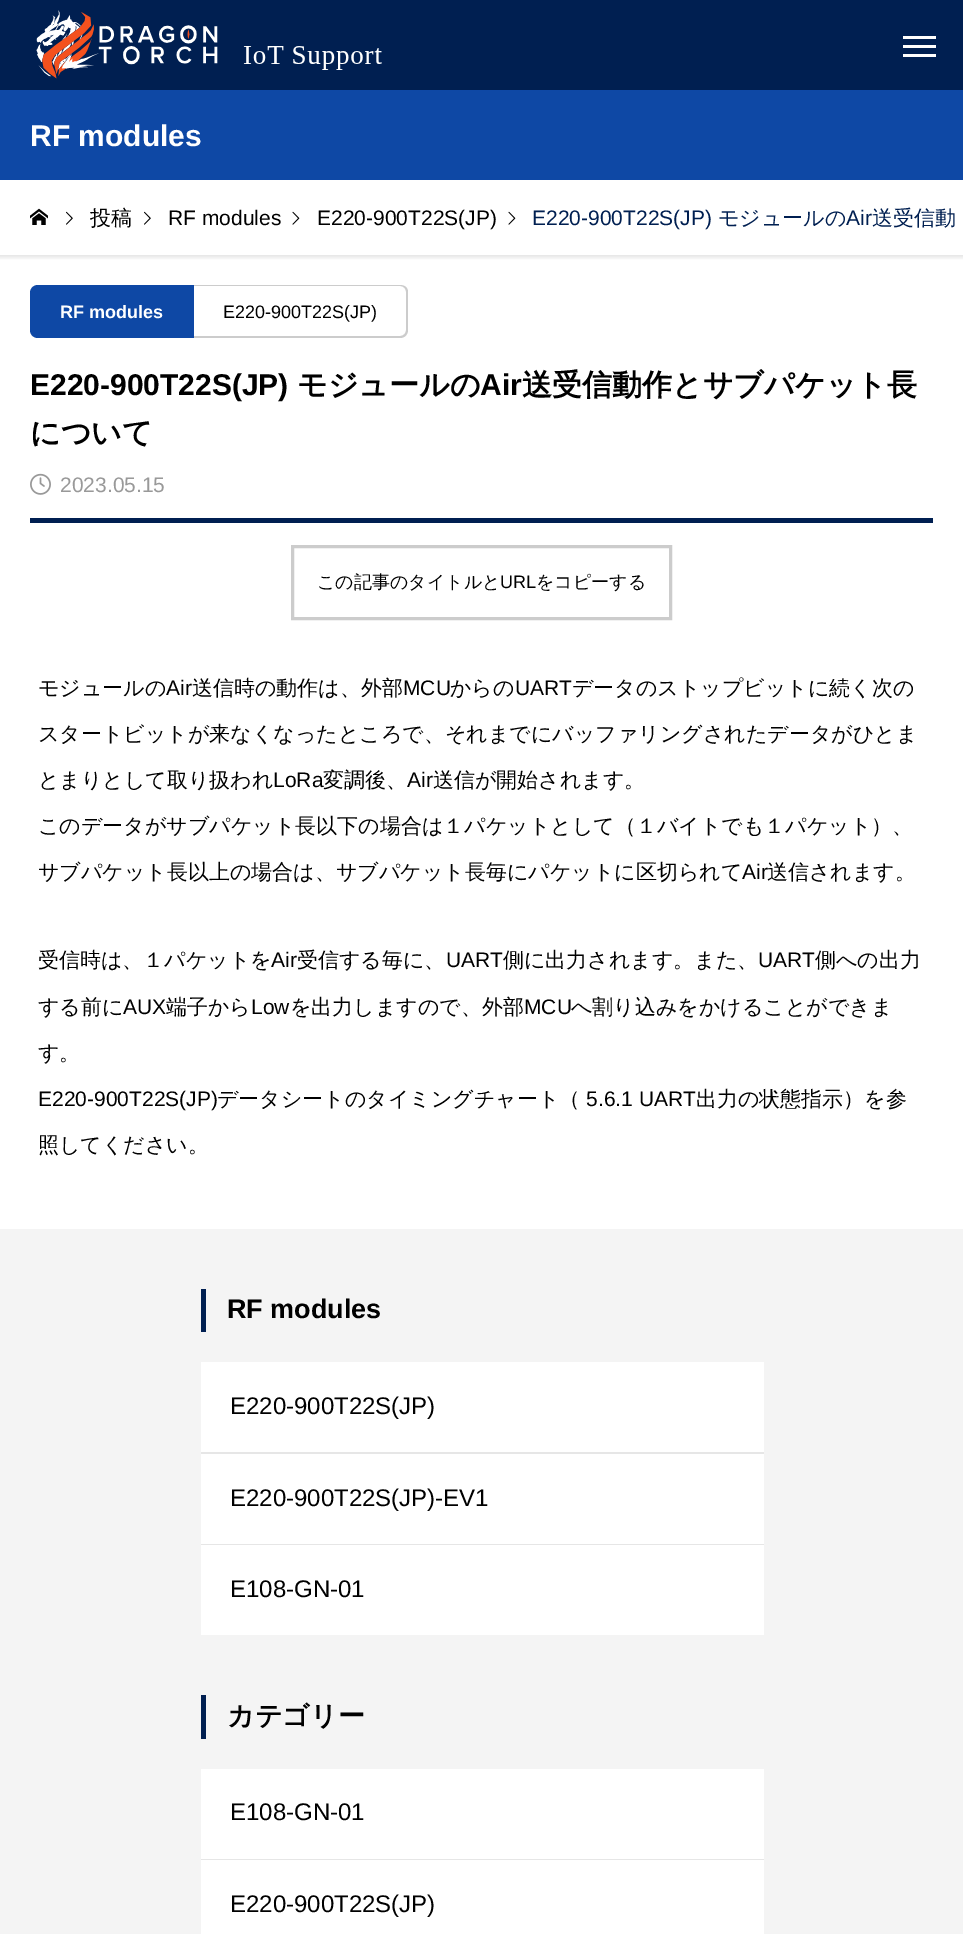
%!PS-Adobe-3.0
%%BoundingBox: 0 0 963 1934
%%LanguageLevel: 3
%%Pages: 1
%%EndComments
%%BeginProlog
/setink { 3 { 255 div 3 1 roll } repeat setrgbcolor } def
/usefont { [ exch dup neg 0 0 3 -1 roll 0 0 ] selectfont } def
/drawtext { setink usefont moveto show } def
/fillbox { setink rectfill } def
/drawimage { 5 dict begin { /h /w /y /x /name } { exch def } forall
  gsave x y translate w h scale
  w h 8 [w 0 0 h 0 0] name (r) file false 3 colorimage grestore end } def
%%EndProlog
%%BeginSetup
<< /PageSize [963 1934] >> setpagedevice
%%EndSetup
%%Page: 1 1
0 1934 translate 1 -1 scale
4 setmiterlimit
0 0 963 1934 255 255 255 fillbox
0 0 963 90 0 31 81 fillbox
(assets/img1.rgb) 36 10 346 69 drawimage
903 36 33 3 255 255 255 fillbox
903 45 33 3 255 255 255 fillbox
903 54 33 3 255 255 255 fillbox
0 90 963 90 14 72 165 fillbox
(RF modules) 30 146 /LiberationSans-Bold 30 255 255 255 drawtext
(assets/img2.rgb) 30 208 18 17 drawimage
(assets/img3.rgb) 66 211 7 14 drawimage
(投稿) 90 225 /WenQuanYiZenHei-Medium 21 0 0 0 drawtext
(assets/img3.rgb) 144 211 7 14 drawimage
(RF modules) 168 225 /LiberationSans-Regular 21 0 0 0 drawtext
(assets/img4.rgb) 292 211 8 14 drawimage
(E220-900T22S\(JP\)) 317 225 /LiberationSans-Regular 21 0 0 0 drawtext
(assets/img4.rgb) 508 211 8 14 drawimage
(E220-900T22S\(JP\)) 532 225 /LiberationSans-Regular 21 0 31 81 drawtext
(モジュールの) 718 225 /WenQuanYiZenHei-Medium 21 0 31 81 drawtext
(Air) 846 225 /LiberationSans-Regular 21 0 31 81 drawtext
(送受信動) 872 225 /WenQuanYiZenHei-Medium 21 0 31 81 drawtext
gsave 0 255 moveto 963 255 lineto 963 260 lineto 0 260 lineto closepath clip newpath
<< /ShadingType 2 /ColorSpace /DeviceRGB /Coords [482 255 482 260] /Extend [true true] /Function << /FunctionType 2 /Domain [0 1] /C0 [0.902 0.902 0.902] /C1 [0.988 0.988 0.988] /N 1 >> >> shfill grestore
30 518 903 5 0 31 81 fillbox
14 72 165 setink
38 285 moveto 194 285 lineto 194 338 lineto 38 338 lineto 33.5 338 30 334.5 30 330 curveto 30 293 lineto 30 288.5 33.5 285 38 285 curveto closepath fill
(RF modules) 60 318 /LiberationSans-Bold 18 255 255 255 drawtext
204 204 204 setink
194 285 moveto 400 285 lineto 405 285 408 288 408 292 curveto 408 330 lineto 408 334 405 338 400 338 curveto 194 338 lineto closepath 194 286 moveto 400 286 lineto 404 286 406 289 406 292 curveto 406 330 lineto 406 333 404 336 400 336 curveto 194 336 lineto closepath eofill
(E220-900T22S\(JP\)) 223 318 /LiberationSans-Regular 18 0 0 0 drawtext
(E220-900T22S\(JP\)) 30 395 /LiberationSans-Bold 30 0 0 0 drawtext
(モジュールの) 297 395 /WenQuanYiZenHei-Bold 30 0 0 0 drawtext
(Air) 480 395 /LiberationSans-Bold 30 0 0 0 drawtext
(送受信動作とサブパケット長) 522 395 /WenQuanYiZenHei-Bold 30 0 0 0 drawtext
(について) 30 443 /WenQuanYiZenHei-Bold 30 0 0 0 drawtext
(assets/img5.rgb) 30 473 21 22 drawimage
(2023.05.15) 60 492 /LiberationSans-Regular 21 153 153 153 drawtext
204 204 204 setink
3 setlinewidth
292.5 546.5 378 72 rectstroke
(この記事のタイトルと) 317 588 /WenQuanYiZenHei-Medium 18 0 0 0 drawtext
(URL) 500 588 /LiberationSans-Regular 18 0 0 0 drawtext
(をコピーする) 536 588 /WenQuanYiZenHei-Medium 18 0 0 0 drawtext
(モジュールの) 38 695 /WenQuanYiZenHei-Medium 21 0 0 0 drawtext
(Air) 166 695 /LiberationSans-Regular 21 0 0 0 drawtext
(送信時の動作は、外部) 192 695 /WenQuanYiZenHei-Medium 21 0 0 0 drawtext
(MCU) 403 695 /LiberationSans-Regular 21 0 0 0 drawtext
(からの) 450 695 /WenQuanYiZenHei-Medium 21 0 0 0 drawtext
(UART) 515 695 /LiberationSans-Regular 21 0 0 0 drawtext
(データのストップビットに続く次の) 572 695 /WenQuanYiZenHei-Medium 21 0 0 0 drawtext
(スタートビットが来なくなったところで、それまでにバッファリングされたデータがひとま) 38 741 /WenQuanYiZenHei-Medium 21 0 0 0 drawtext
(とまりとして取り扱われ) 38 787 /WenQuanYiZenHei-Medium 21 0 0 0 drawtext
(LoRa) 273 787 /LiberationSans-Regular 21 0 0 0 drawtext
(変調後、) 323 787 /WenQuanYiZenHei-Medium 21 0 0 0 drawtext
(Air) 407 787 /LiberationSans-Regular 21 0 0 0 drawtext
(送信が開始されます。) 433 787 /WenQuanYiZenHei-Medium 21 0 0 0 drawtext
(このデータがサブパケット長以下の場合は１パケットとして（１バイトでも１パケット）、) 38 833 /WenQuanYiZenHei-Medium 21 0 0 0 drawtext
(サブパケット長以上の場合は、サブパケット長毎にパケットに区切られて) 38 879 /WenQuanYiZenHei-Medium 21 0 0 0 drawtext
(Air) 742 879 /LiberationSans-Regular 21 0 0 0 drawtext
(送信されます。) 767 879 /WenQuanYiZenHei-Medium 21 0 0 0 drawtext
(受信時は、１パケットを) 38 967 /WenQuanYiZenHei-Medium 21 0 0 0 drawtext
(Air) 271 967 /LiberationSans-Regular 21 0 0 0 drawtext
(受信する毎に、) 297 967 /WenQuanYiZenHei-Medium 21 0 0 0 drawtext
(UART) 446 967 /LiberationSans-Regular 21 0 0 0 drawtext
(側に出力されます。また、) 503 967 /WenQuanYiZenHei-Medium 21 0 0 0 drawtext
(UART) 758 967 /LiberationSans-Regular 21 0 0 0 drawtext
(側への出力) 815 967 /WenQuanYiZenHei-Medium 21 0 0 0 drawtext
(する前に) 38 1014 /WenQuanYiZenHei-Medium 21 0 0 0 drawtext
(AUX) 123 1014 /LiberationSans-Regular 21 0 0 0 drawtext
(端子から) 166 1014 /WenQuanYiZenHei-Medium 21 0 0 0 drawtext
(Low) 251 1014 /LiberationSans-Regular 21 0 0 0 drawtext
(を出力しますので、外部) 290 1014 /WenQuanYiZenHei-Medium 21 0 0 0 drawtext
(MCU) 524 1014 /LiberationSans-Regular 21 0 0 0 drawtext
(へ割り込みをかけることができま) 571 1014 /WenQuanYiZenHei-Medium 21 0 0 0 drawtext
(す。) 38 1060 /WenQuanYiZenHei-Medium 21 0 0 0 drawtext
(E220-900T22S\(JP\)) 38 1106 /LiberationSans-Regular 21 0 0 0 drawtext
(データシートのタイミングチャート（) 217 1106 /WenQuanYiZenHei-Medium 21 0 0 0 drawtext
(5.6.1 UART) 586 1106 /LiberationSans-Regular 21 0 0 0 drawtext
(出力の状態指示）を参) 696 1106 /WenQuanYiZenHei-Medium 21 0 0 0 drawtext
(照してください。) 38 1152 /WenQuanYiZenHei-Medium 21 0 0 0 drawtext
0 1229 963 705 244 244 244 fillbox
201 1289 5 43 0 31 81 fillbox
(RF modules) 227 1318 /LiberationSans-Bold 27 0 0 0 drawtext
201 1362 563 90 255 255 255 fillbox
(E220-900T22S\(JP\)) 230 1414 /LiberationSans-Regular 24 0 0 0 drawtext
201 1452 563 2 230 230 230 fillbox
201 1454 563 90 255 255 255 fillbox
(E220-900T22S\(JP\)-EV1) 230 1506 /LiberationSans-Regular 24 0 0 0 drawtext
201 1544 563 1 230 230 230 fillbox
201 1545 563 90 255 255 255 fillbox
(E108-GN-01) 230 1597 /LiberationSans-Regular 24 0 0 0 drawtext
201 1695 5 44 0 31 81 fillbox
(カテゴリー) 227 1725 /WenQuanYiZenHei-Bold 27 0 0 0 drawtext
201 1769 563 90 255 255 255 fillbox
(E108-GN-01) 230 1820 /LiberationSans-Regular 24 0 0 0 drawtext
201 1859 563 1 230 230 230 fillbox
201 1860 563 74 255 255 255 fillbox
(E220-900T22S\(JP\)) 230 1912 /LiberationSans-Regular 24 0 0 0 drawtext
showpage
%%EOF
